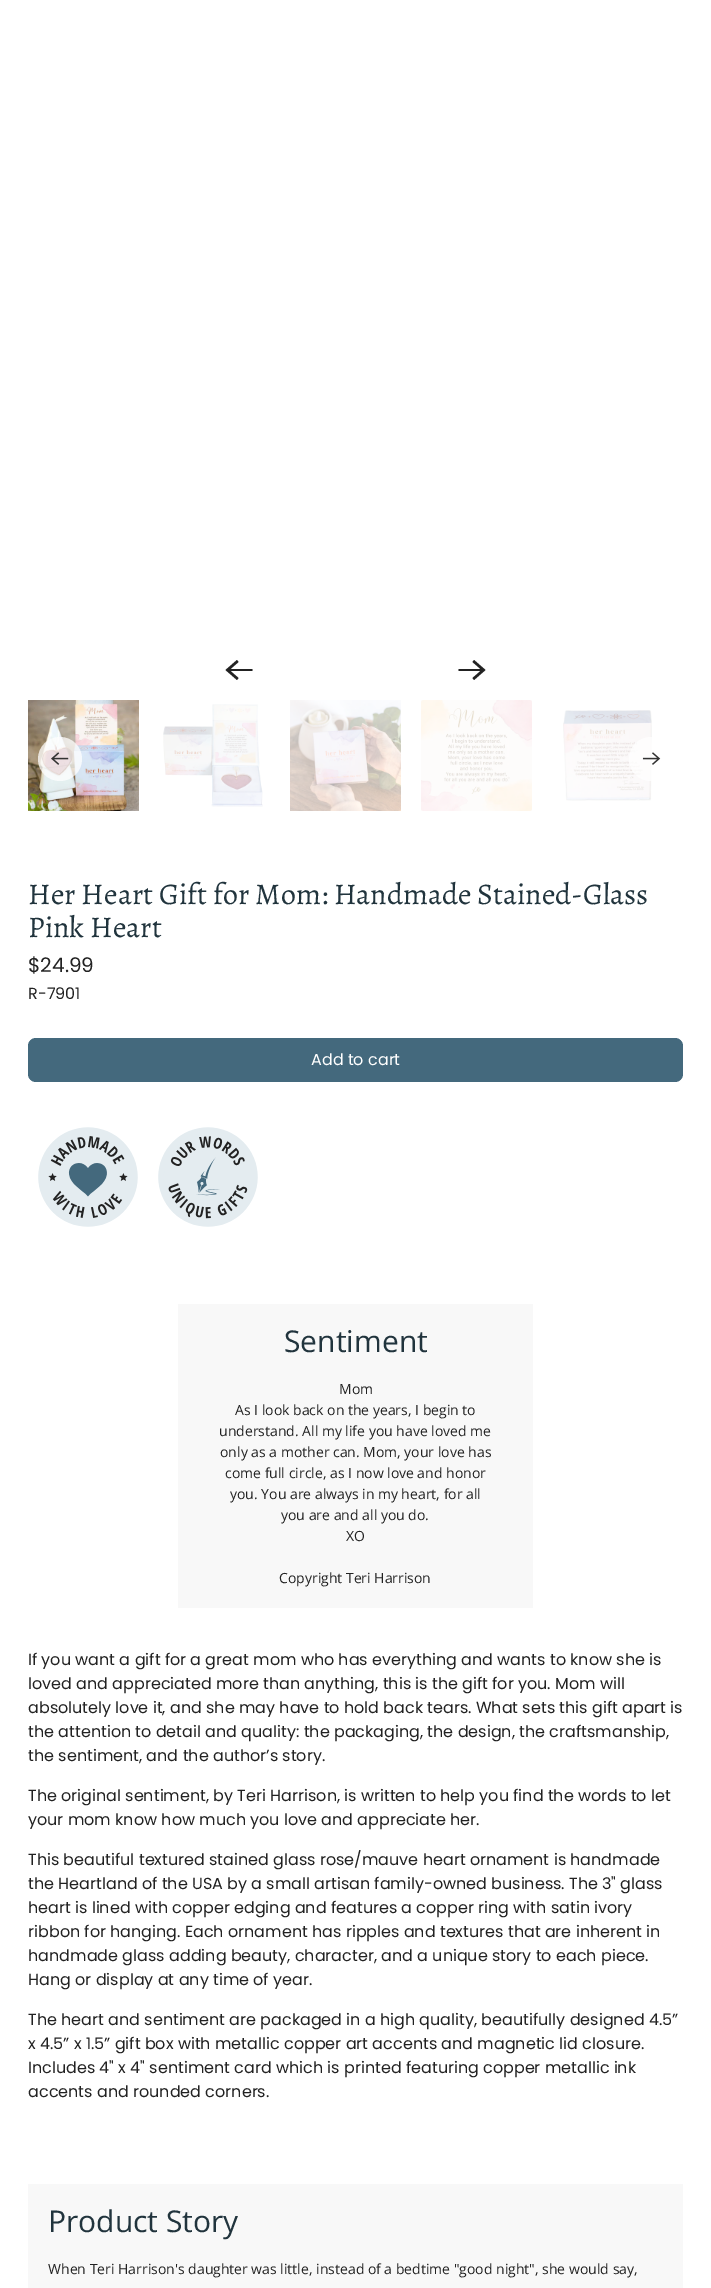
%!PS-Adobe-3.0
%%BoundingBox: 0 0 711 2288
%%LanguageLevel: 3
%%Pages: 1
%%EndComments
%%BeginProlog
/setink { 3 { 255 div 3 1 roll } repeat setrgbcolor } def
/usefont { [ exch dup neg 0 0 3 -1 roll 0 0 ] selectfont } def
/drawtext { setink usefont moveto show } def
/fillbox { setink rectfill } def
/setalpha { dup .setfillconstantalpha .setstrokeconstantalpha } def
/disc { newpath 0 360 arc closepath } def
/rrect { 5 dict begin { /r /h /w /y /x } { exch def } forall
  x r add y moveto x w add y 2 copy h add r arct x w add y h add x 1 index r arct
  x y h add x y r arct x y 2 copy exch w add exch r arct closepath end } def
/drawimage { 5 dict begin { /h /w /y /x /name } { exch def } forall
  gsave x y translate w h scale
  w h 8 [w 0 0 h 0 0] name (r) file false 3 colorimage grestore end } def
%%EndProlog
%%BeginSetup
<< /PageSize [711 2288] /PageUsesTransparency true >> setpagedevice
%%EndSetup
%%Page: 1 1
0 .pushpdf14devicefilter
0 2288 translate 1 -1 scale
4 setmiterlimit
0 0 711 2288 255 255 255 fillbox
34 34 34 setink
252.5 669 moveto 230.5 669 lineto 238.5 662 lineto 237 660 lineto 225.5 670 lineto 237 680 lineto 238.5 678 lineto 230.5 671 lineto 252.5 671 lineto closepath fill
458.5 671 moveto 480.5 671 lineto 472.5 678 lineto 474 680 lineto 485.5 670 lineto 474 660 lineto 472.5 662 lineto 480.5 669 lineto 458.5 669 lineto closepath fill
(assets/img1.rgb) 28 700 111 111 drawimage
(assets/img2.rgb) 163 704 100 103 drawimage
(assets/img3.rgb) 290 700 111 111 drawimage
(assets/img4.rgb) 421 700 111 111 drawimage
(assets/img5.rgb) 563 710 89 91 drawimage
0.75 setalpha
255 255 255 setink
60 759 22 disc fill
1 setalpha
(assets/img6.rgb) 51 752 18 13 drawimage
0.75 setalpha
651 759 22 disc fill
1 setalpha
(assets/img7.rgb) 642 752 19 13 drawimage
(Her Heart Gift for Mom: Handmade Stained-Glass) 28 904 /Alegreya-Regular 30 33 52 61 drawtext
(Pink Heart) 28 937 /Alegreya-Regular 30 33 52 61 drawtext
($24.99) 28 972 /Poppins-Regular 20 34 34 34 drawtext
(R-7901) 28 999 /Poppins-Regular 16 34 34 34 drawtext
68 105 125 setink
28 1038 655 44 8 rrect fill
(Add to cart) 311 1065 /Poppins-Regular 16 255 255 255 drawtext
(assets/img8.rgb) 38 1127 100 100 drawimage
(assets/img9.rgb) 158 1127 100 100 drawimage
178 1304 355 304 248 248 248 fillbox
(Sentiment) 284 1352 /OpenSans-Regular 30 33 52 61 drawtext
(Mom) 339 1394 /OpenSans-Regular 14 34 34 34 drawtext
(As I look back on the years, I begin to) 235 1415 /OpenSans-Regular 14 34 34 34 drawtext
(understand. All my life you have loved me) 219 1436 /OpenSans-Regular 14 34 34 34 drawtext
(only as a mother can. Mom, your love has) 220 1457 /OpenSans-Regular 14 34 34 34 drawtext
(come full circle, as I now love and honor) 225 1478 /OpenSans-Regular 14 34 34 34 drawtext
(you. You are always in my heart, for all) 230 1499 /OpenSans-Regular 14 34 34 34 drawtext
(you are and all you do.) 281 1520 /OpenSans-Regular 14 34 34 34 drawtext
(XO) 346 1541 /OpenSans-Regular 14 34 34 34 drawtext
(Copyright Teri Harrison) 279 1583 /OpenSans-Regular 14 34 34 34 drawtext
(If you want a gift for a great mom who has everything and wants to know she is) 28 1665 /Poppins-Regular 16 34 34 34 drawtext
(loved and appreciated more than anything, this is the gift for you. Mom will) 28 1689 /Poppins-Regular 16 34 34 34 drawtext
(absolutely love it, and she may have to hold back tears. What sets this gift apart is) 28 1713 /Poppins-Regular 16 34 34 34 drawtext
(the attention to detail and quality: the packaging, the design, the craftsmanship,) 28 1737 /Poppins-Regular 16 34 34 34 drawtext
(the sentiment, and the author’s story.) 28 1761 /Poppins-Regular 16 34 34 34 drawtext
(The original sentiment, by Teri Harrison, is written to help you find the words to let) 28 1801 /Poppins-Regular 16 34 34 34 drawtext
(your mom know how much you love and appreciate her.) 28 1825 /Poppins-Regular 16 34 34 34 drawtext
(This beautiful textured stained glass rose/mauve heart ornament is handmade) 28 1865 /Poppins-Regular 16 34 34 34 drawtext
(the Heartland of the USA by a small artisan family-owned business. The 3" glass) 28 1889 /Poppins-Regular 16 34 34 34 drawtext
(heart is lined with copper edging and features a copper ring with satin ivory) 28 1913 /Poppins-Regular 16 34 34 34 drawtext
(ribbon for hanging. Each ornament has ripples and textures that are inherent in) 28 1937 /Poppins-Regular 16 34 34 34 drawtext
(handmade glass adding beauty, character, and a unique story to each piece.) 28 1961 /Poppins-Regular 16 34 34 34 drawtext
(Hang or display at any time of year.) 28 1985 /Poppins-Regular 16 34 34 34 drawtext
(The heart and sentiment are packaged in a high quality, beautifully designed 4.5”) 28 2025 /Poppins-Regular 16 34 34 34 drawtext
(x 4.5” x 1.5” gift box with metallic copper art accents and magnetic lid closure.) 28 2049 /Poppins-Regular 16 34 34 34 drawtext
(Includes 4" x 4" sentiment card which is printed featuring copper metallic ink) 28 2073 /Poppins-Regular 16 34 34 34 drawtext
(accents and rounded corners.) 28 2097 /Poppins-Regular 16 34 34 34 drawtext
28 2184 655 104 248 248 248 fillbox
(Product Story) 48 2232 /OpenSans-Regular 30 33 52 61 drawtext
(When Teri Harrison's daughter was little, instead of a bedtime "good night", she would say,) 48 2274 /OpenSans-Regular 14 34 34 34 drawtext
.poppdf14devicefilter showpage
%%EOF
